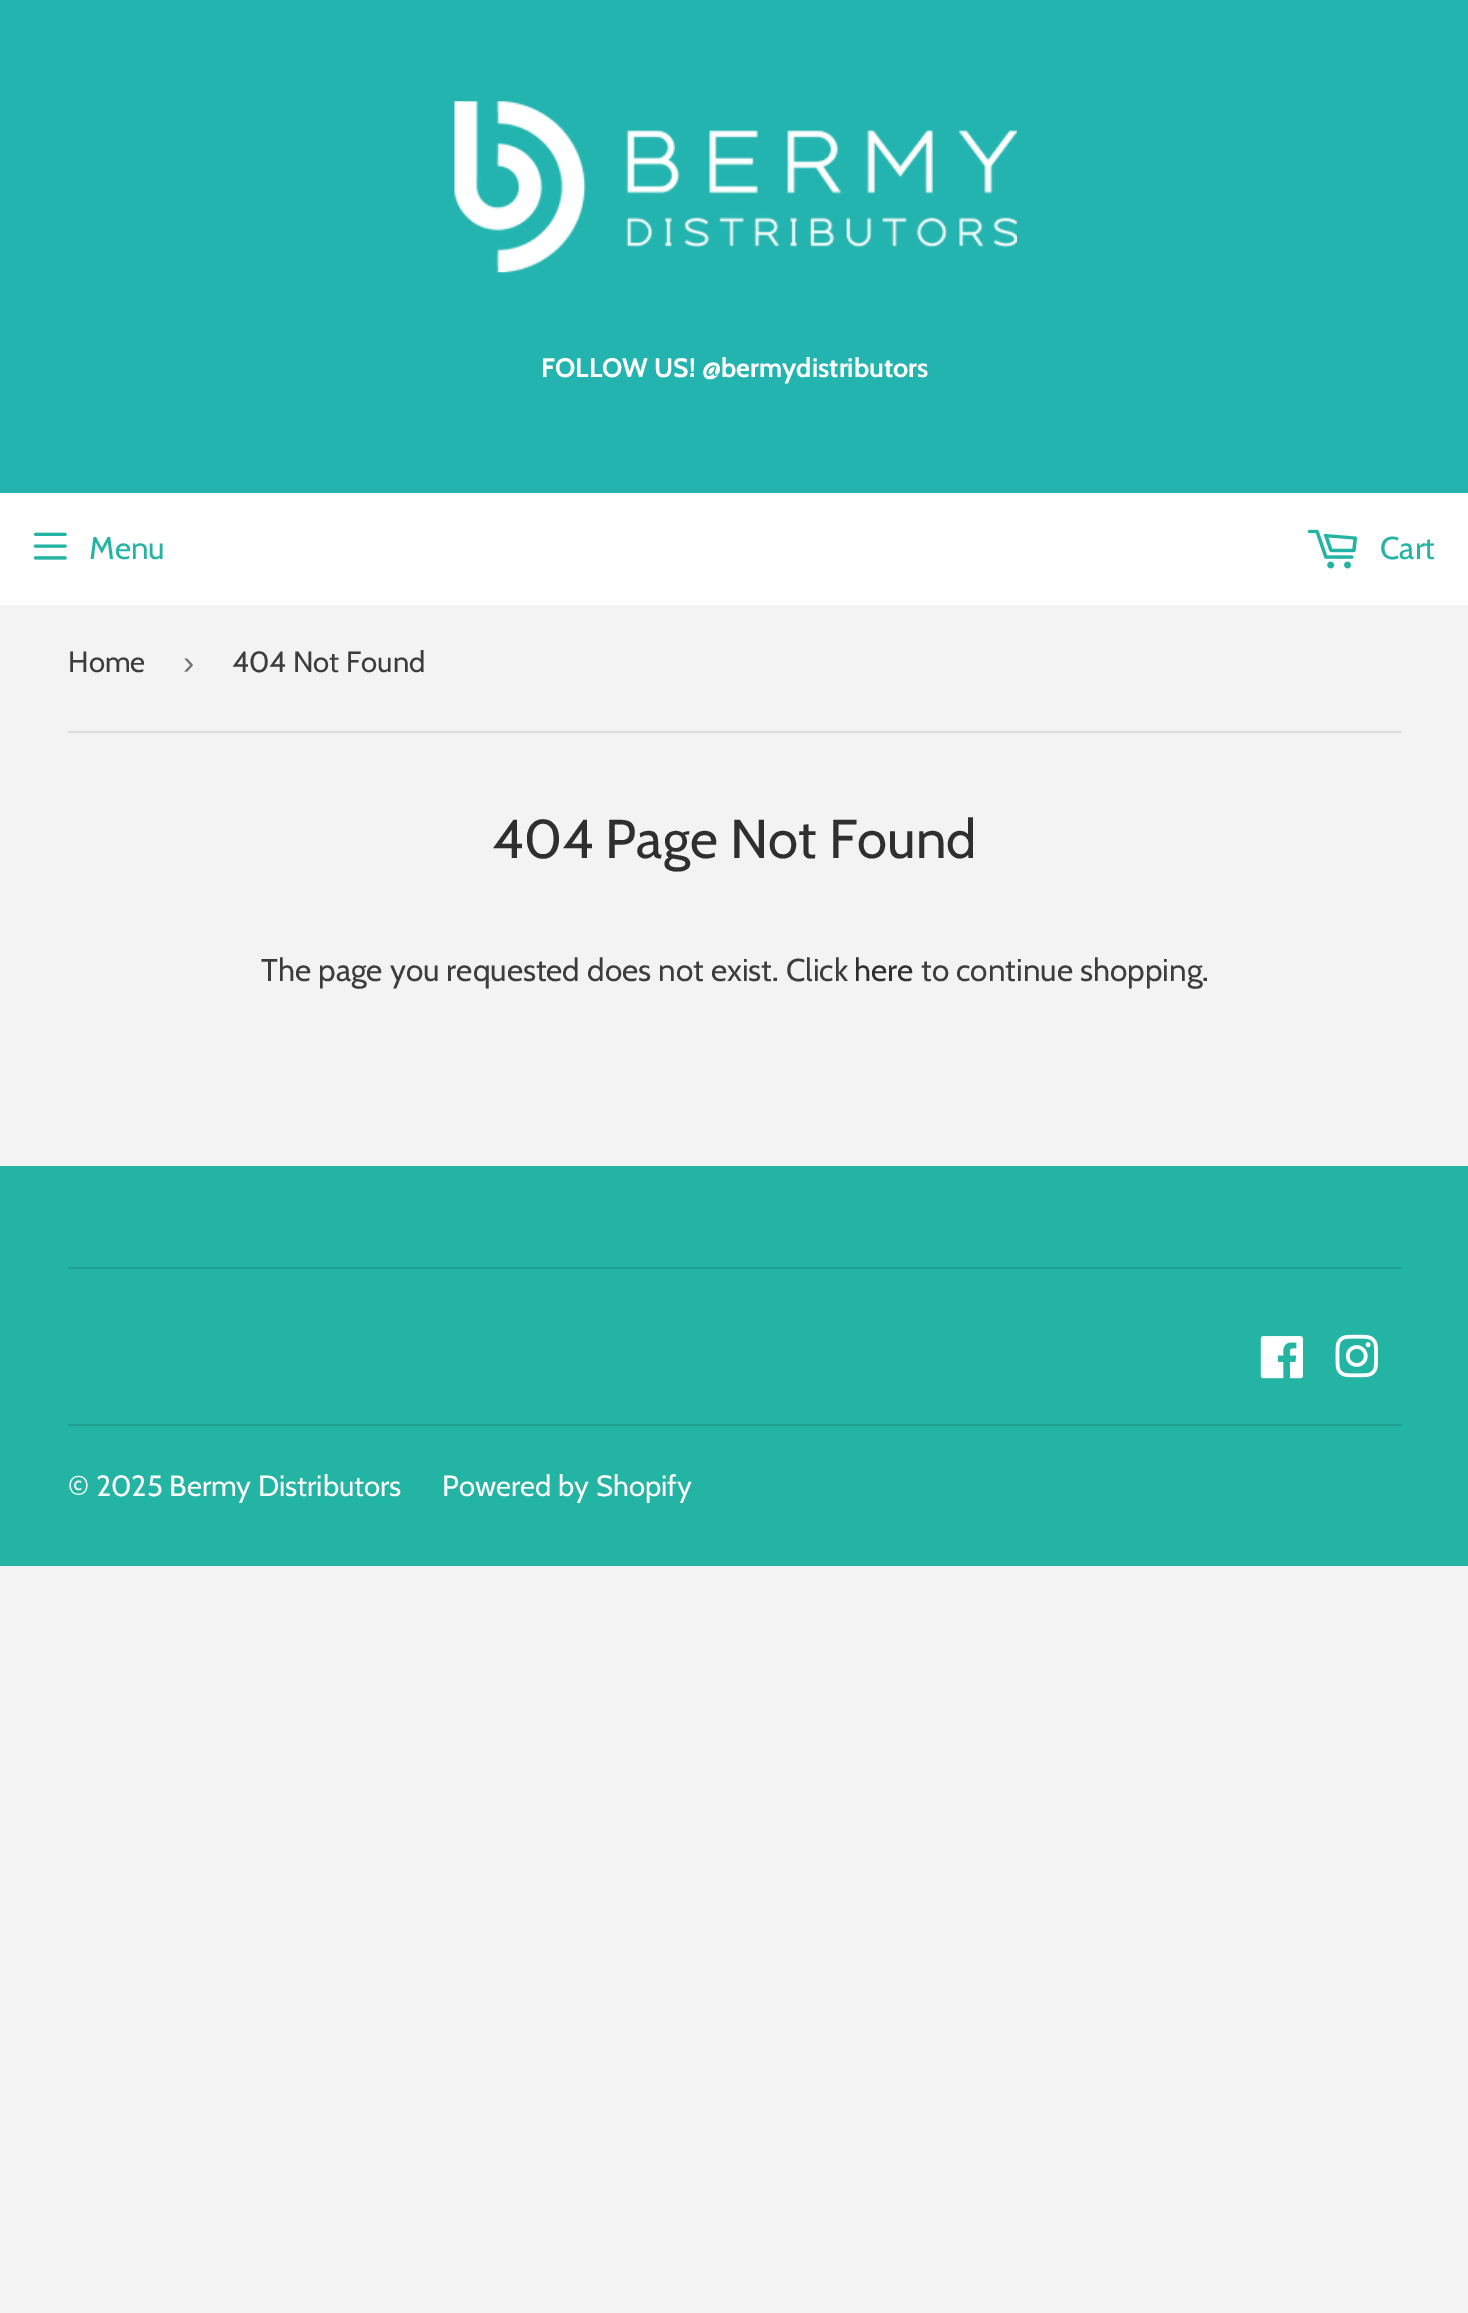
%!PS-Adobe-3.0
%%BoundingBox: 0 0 1468 2313
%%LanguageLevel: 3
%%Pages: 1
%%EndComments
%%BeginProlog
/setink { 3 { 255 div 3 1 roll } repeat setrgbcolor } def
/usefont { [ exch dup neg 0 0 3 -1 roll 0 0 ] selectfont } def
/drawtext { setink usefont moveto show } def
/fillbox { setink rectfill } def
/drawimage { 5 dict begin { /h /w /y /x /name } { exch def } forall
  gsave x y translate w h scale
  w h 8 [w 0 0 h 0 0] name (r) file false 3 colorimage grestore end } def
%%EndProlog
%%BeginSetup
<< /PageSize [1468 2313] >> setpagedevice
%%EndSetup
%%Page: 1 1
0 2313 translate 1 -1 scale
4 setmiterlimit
0 0 1468 2313 243 243 243 fillbox
0 0 1468 493 36 180 175 fillbox
(assets/img1.rgb) 454 101 563 172 drawimage
(FOLLOW US! @bermydistributors) 541 377 /Cabin-Bold 26.75 255 255 255 drawtext
0 493 1468 112 255 255 255 fillbox
(assets/img2.rgb) 33 532 34 28 drawimage
(Menu) 89 559 /Cabin-Regular 31.5 36 180 163 drawtext
(assets/img3.rgb) 1307 529 50 40 drawimage
(Cart) 1380 559 /Cabin-Regular 31.5 36 180 163 drawtext
68 731 1334 2 222 222 222 fillbox
(Home) 68 672 /Cabin-Regular 29.25 61 61 61 drawtext
(›) 183 674 /LiberationSans-Regular 34 118 118 118 drawtext
(404 Not Found) 232 672 /Cabin-Regular 29.25 61 61 61 drawtext
(404 Page Not Found) 492 858 /Cabin-Regular 54.5 47 47 47 drawtext
(The page you requested does not exist. Click) 261 981 /Cabin-Regular 31.5 61 61 61 drawtext
(here) 854 981 /Cabin-Regular 31.5 47 47 47 drawtext
(to continue shopping.) 921 981 /Cabin-Regular 31.5 61 61 61 drawtext
0 1166 1468 400 36 180 163 fillbox
68 1267 1334 2 32 159 144 fillbox
(assets/img4.rgb) 1260 1336 43 43 drawimage
(assets/img5.rgb) 1335 1334 43 44 drawimage
68 1424 1334 2 32 159 144 fillbox
(© 2025 Bermy Distributors) 68 1496 /Cabin-Regular 29.25 255 255 255 drawtext
(Powered by Shopify) 442 1496 /Cabin-Regular 29.25 255 255 255 drawtext
showpage
%%EOF
